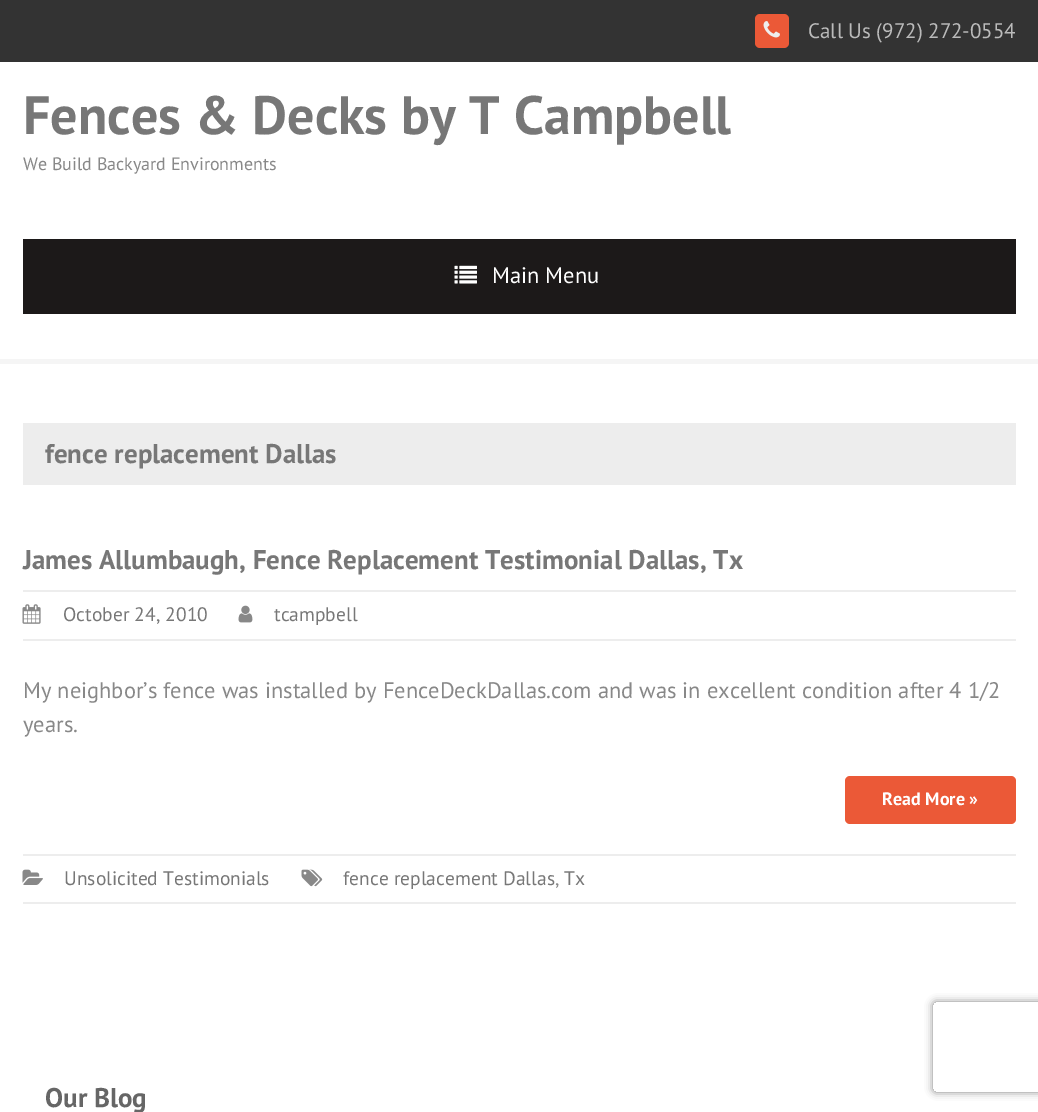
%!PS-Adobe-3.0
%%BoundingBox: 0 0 1038 1112
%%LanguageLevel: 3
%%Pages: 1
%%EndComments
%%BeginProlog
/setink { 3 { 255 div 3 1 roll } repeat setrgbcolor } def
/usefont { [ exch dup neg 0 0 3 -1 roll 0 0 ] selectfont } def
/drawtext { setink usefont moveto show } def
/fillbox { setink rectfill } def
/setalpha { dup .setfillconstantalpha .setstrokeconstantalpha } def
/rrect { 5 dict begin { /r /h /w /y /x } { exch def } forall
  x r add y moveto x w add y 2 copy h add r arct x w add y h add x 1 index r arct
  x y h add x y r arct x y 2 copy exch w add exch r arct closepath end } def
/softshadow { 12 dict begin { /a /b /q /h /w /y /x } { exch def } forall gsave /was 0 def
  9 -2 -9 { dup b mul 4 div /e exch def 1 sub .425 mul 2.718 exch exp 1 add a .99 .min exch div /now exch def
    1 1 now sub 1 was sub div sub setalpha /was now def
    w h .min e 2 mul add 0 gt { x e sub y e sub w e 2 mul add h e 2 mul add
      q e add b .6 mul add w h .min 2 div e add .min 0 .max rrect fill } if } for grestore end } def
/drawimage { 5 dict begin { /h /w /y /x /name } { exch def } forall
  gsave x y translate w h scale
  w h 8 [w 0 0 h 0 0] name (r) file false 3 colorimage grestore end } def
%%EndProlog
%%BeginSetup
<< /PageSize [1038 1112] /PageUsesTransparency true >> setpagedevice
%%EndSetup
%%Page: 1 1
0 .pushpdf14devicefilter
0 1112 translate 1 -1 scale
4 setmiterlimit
0 0 1038 1112 255 255 255 fillbox
0 359 1038 5 245 245 245 fillbox
0 0 1038 62 51 51 51 fillbox
235 89 55 setink
755 14 34 34 5 rrect fill
(assets/img1.rgb) 763 21 17 17 drawimage
(Call Us \(972\) 272-0554) 808 38 /PTSans-Regular 21 187 187 187 drawtext
(Fences & Decks by T Campbell) 23 134 /PTSans-Bold 54 119 119 119 drawtext
(We Build Backyard Environments) 23 170 /PTSans-Regular 18 136 136 136 drawtext
23 239 993 75 28 25 25 fillbox
(assets/img2.rgb) 454 265 23 19 drawimage
(Main Menu) 492 283 /PTSans-Regular 22.5 255 255 255 drawtext
23 423 993 62 237 237 237 fillbox
(fence replacement Dallas) 45 463 /PTSans-Bold 27 119 119 119 drawtext
(James Allumbaugh, Fence Replacement Testimonial Dallas, Tx) 23 569 /PTSans-Bold 27 119 119 119 drawtext
23 590 993 2 237 237 237 fillbox
23 639 993 2 237 237 237 fillbox
(assets/img3.rgb) 22 604 19 20 drawimage
(October 24, 2010) 63 621 /PTSans-Regular 19.5 119 119 119 drawtext
(assets/img4.rgb) 238 605 15 18 drawimage
(tcampbell) 274 621 /PTSans-Regular 19.5 119 119 119 drawtext
(My neighbor’s fence was installed by FenceDeckDallas.com and was in excellent condition after 4 1/2) 23 698 /PTSans-Regular 22.5 136 136 136 drawtext
(years.) 23 732 /PTSans-Regular 22.5 136 136 136 drawtext
235 89 55 setink
845 776 171 48 5 rrect fill
(Read More ») 882 805 /PTSans-Bold 18 255 255 255 drawtext
23 854 993 2 237 237 237 fillbox
23 902 993 2 237 237 237 fillbox
(assets/img5.rgb) 22 869 21 16 drawimage
(Unsolicited Testimonials) 64 885 /PTSans-Regular 19.5 119 119 119 drawtext
(assets/img6.rgb) 301 869 22 18 drawimage
(fence replacement Dallas) 343 885 /PTSans-Regular 19.5 119 119 119 drawtext
(Tx) 564 885 /PTSans-Regular 19.5 119 119 119 drawtext
(,) 555 885 /PTSans-Regular 19.5 136 136 136 drawtext
(Our Blog) 45 1107 /PTSans-Bold 27 102 102 102 drawtext
gsave
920 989 moveto 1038 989 lineto 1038 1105 lineto 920 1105 lineto closepath 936 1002 moveto 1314 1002 lineto 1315.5 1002 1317 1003.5 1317 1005 curveto 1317 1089 lineto 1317 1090.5 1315.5 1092 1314 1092 curveto 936 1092 lineto 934.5 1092 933 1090.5 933 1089 curveto 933 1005 lineto 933 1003.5 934.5 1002 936 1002 curveto closepath eoclip newpath
128 128 128 setink
933 1002 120 90 3 4 1 softshadow
grestore
.poppdf14devicefilter showpage
%%EOF
